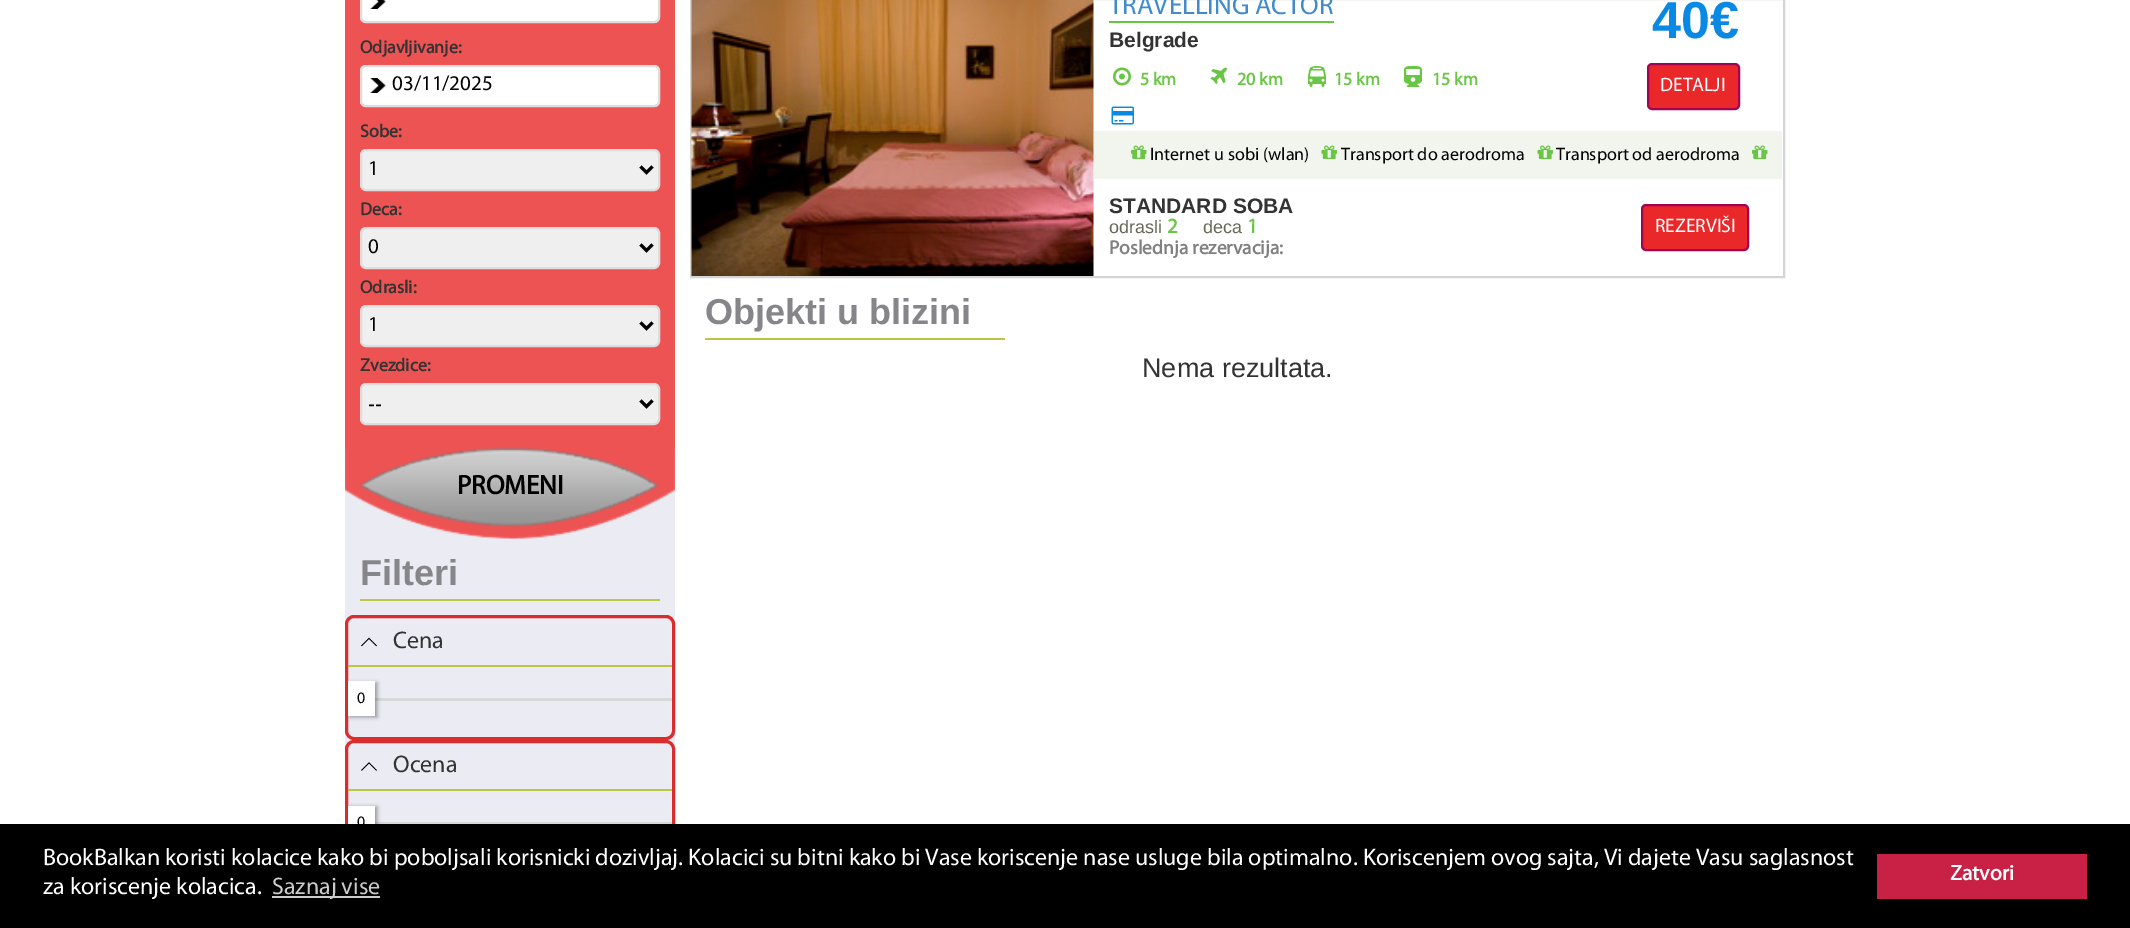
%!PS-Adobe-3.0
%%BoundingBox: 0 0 2130 928
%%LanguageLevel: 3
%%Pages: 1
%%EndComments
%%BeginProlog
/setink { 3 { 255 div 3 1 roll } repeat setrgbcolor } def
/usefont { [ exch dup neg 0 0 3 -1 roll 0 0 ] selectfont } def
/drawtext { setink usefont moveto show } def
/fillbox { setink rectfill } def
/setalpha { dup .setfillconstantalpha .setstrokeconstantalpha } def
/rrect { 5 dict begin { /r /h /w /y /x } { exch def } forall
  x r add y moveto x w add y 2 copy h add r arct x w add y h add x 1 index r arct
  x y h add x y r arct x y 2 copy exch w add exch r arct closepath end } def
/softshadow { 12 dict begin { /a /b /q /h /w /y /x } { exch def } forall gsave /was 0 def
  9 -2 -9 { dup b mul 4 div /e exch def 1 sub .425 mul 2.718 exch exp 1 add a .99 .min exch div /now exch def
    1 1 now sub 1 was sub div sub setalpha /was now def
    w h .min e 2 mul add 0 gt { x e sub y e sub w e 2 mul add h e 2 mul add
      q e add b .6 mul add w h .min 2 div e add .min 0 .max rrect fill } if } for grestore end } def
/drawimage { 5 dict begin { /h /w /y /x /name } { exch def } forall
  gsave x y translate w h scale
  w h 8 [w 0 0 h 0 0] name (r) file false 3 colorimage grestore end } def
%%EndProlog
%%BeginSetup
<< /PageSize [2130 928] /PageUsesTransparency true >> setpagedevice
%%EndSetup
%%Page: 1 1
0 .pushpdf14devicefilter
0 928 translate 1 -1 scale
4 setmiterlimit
0 0 2130 928 255 255 255 fillbox
345 449 330 373 234 235 243 fillbox
345 0 330 449 238 83 84 fillbox
255 255 255 setink
360 -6 300 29 6 rrect fill
(assets/img1.rgb) 370 0 16 9 drawimage
221 221 221 setink
2 setlinewidth
361 -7 298 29 5 rrect stroke
(Odjavljivanje:) 360 53 /Myriad-Bold 18 51 51 51 drawtext
255 255 255 setink
360 65 300 42 6 rrect fill
(assets/img2.rgb) 370 78 16 15 drawimage
221 221 221 setink
361 66 298 40 5 rrect stroke
(03/11/2025) 392 90 /Myriad-Regular 21 0 0 0 drawtext
(Sobe:) 360 137 /Myriad-Bold 18 51 51 51 drawtext
239 239 239 setink
361 150 298 40 5 rrect gsave fill grestore
221 221 221 setink
stroke
0 0 0 setink
3 setlinewidth
640.5 166.5 moveto 646.5 172.5 lineto 652.5 166.5 lineto stroke
(1) 368 175 /Myriad-Regular 21 0 0 0 drawtext
(Deca:) 360 215 /Myriad-Bold 18 51 51 51 drawtext
239 239 239 setink
361 228 298 40 5 rrect gsave fill grestore
221 221 221 setink
2 setlinewidth
stroke
0 0 0 setink
3 setlinewidth
640.5 244.5 moveto 646.5 250.5 lineto 652.5 244.5 lineto stroke
(0) 368 253 /Myriad-Regular 21 0 0 0 drawtext
(Odrasli:) 360 293 /Myriad-Bold 18 51 51 51 drawtext
239 239 239 setink
361 306 298 40 5 rrect gsave fill grestore
221 221 221 setink
2 setlinewidth
stroke
0 0 0 setink
3 setlinewidth
640.5 322.5 moveto 646.5 328.5 lineto 652.5 322.5 lineto stroke
(1) 368 331 /Myriad-Regular 21 0 0 0 drawtext
(Zvezdice:) 360 371 /Myriad-Bold 18 51 51 51 drawtext
239 239 239 setink
361 384 298 40 5 rrect gsave fill grestore
221 221 221 setink
2 setlinewidth
stroke
0 0 0 setink
3 setlinewidth
640.5 400.5 moveto 646.5 406.5 lineto 652.5 400.5 lineto stroke
(--) 368 411 /LiberationSans-Regular 21 0 0 0 drawtext
(assets/img3.rgb) 345 449 330 90 drawimage
(assets/img4.rgb) 360 448 299 79 drawimage
(PROMENI) 457 494 /Myriad-Bold 27 0 0 0 drawtext
360 599 300 2 188 198 68 fillbox
(Filteri) 360 585 /LiberationSans-Bold 36 134 134 138 drawtext
219 45 46 setink
346.5 616.5 327 122 7.5 rrect stroke
(assets/img5.rgb) 361 637 17 10 drawimage
348 665 324 2 188 198 68 fillbox
(Cena) 393 648 /Myriad-Regular 24 51 51 51 drawtext
375 698 297 3 216 216 216 fillbox
0 0 0 setink
350 683 27 34 0 2 0.2 softshadow
350 683 27 34 0 2 0.2 softshadow
348 681 27 35 255 255 255 fillbox
(0) 357 703 /Myriad-Regular 16 0 0 0 drawtext
219 45 46 setink
346.5 741.5 327 121 7.5 rrect stroke
(assets/img6.rgb) 361 762 16 9 drawimage
348 789 324 2 188 198 68 fillbox
(Ocena) 393 772 /Myriad-Regular 24 51 51 51 drawtext
375 822 297 2 216 216 216 fillbox
0 0 0 setink
350 807 27 35 0 2 0.2 softshadow
350 807 27 35 0 2 0.2 softshadow
348 806 27 18 255 255 255 fillbox
(0) 357 827 /Myriad-Regular 16 0 0 0 drawtext
213 213 213 setink
2 setlinewidth
691 -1 1093 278 rectstroke
(assets/img7.rgb) 691 0 403 276 drawimage
1109 21 225 2 105 198 68 fillbox
(TRAVELLING ACTOR) 1109 14 /Myriad-Regular 27 66 139 202 drawtext
(Belgrade) 1109 47 /LiberationSans-Bold 21 51 51 51 drawtext
(assets/img8.rgb) 1113 67 18 19 drawimage
(5 km) 1140 85 /Myriad-Bold 18 105 198 68 drawtext
(assets/img9.rgb) 1210 67 17 17 drawimage
(20 km) 1237 85 /Myriad-Bold 18 105 198 68 drawtext
(assets/img10.rgb) 1308 66 18 21 drawimage
(15 km) 1334 85 /Myriad-Bold 18 105 198 68 drawtext
(assets/img11.rgb) 1404 66 18 21 drawimage
(15 km) 1432 85 /Myriad-Bold 18 105 198 68 drawtext
(assets/img12.rgb) 1111 106 23 19 drawimage
(40€) 1652 38 /LiberationSans-Bold 52 10 137 228 drawtext
234 39 41 setink
1648 64 91 45 4 rrect gsave fill grestore
161 3 85 setink
stroke
(DETALJI) 1660 91 /Myriad-Regular 19.5 255 255 255 drawtext
1094 131 688 48 242 244 238 fillbox
(assets/img13.rgb) 1131 145 16 14 drawimage
(Internet u sobi \(wlan\)) 1150 160 /Myriad-Regular 18 0 0 0 drawtext
(assets/img14.rgb) 1321 145 16 14 drawimage
(Transport do aerodroma) 1341 160 /Myriad-Regular 18 0 0 0 drawtext
(assets/img14.rgb) 1537 145 16 14 drawimage
(Transport od aerodroma) 1556 160 /Myriad-Regular 18 0 0 0 drawtext
(assets/img13.rgb) 1752 145 16 14 drawimage
(STANDARD SOBA) 1109 213 /LiberationSans-Bold 21 51 51 51 drawtext
(odrasli) 1109 233 /LiberationSans-Regular 18 104 104 89 drawtext
(2) 1167 233 /Myriad-Bold 21 105 198 68 drawtext
(deca) 1203 233 /LiberationSans-Regular 18 104 104 89 drawtext
(1) 1247 233 /Myriad-Bold 21 105 198 68 drawtext
(Poslednja rezervacija:) 1109 254 /Myriad-Bold 19.5 128 128 128 drawtext
234 39 41 setink
1642 205 106 45 4 rrect gsave fill grestore
161 3 85 setink
stroke
(REZERVIŠI) 1655 232 /Myriad-Regular 19.5 255 255 255 drawtext
705 338 300 2 188 198 68 fillbox
(Objekti u blizini) 705 324 /LiberationSans-Bold 36 134 134 138 drawtext
(Nema rezultata.) 1142 377 /LiberationSans-Regular 27 51 51 51 drawtext
0 824 2130 104 0 0 0 fillbox
(BookBalkan koristi kolacice kako bi poboljsali korisnicki dozivljaj. Kolacici su bitni kako bi Vase koriscenje nase usluge bila optimalno. Koriscenjem ovog sajta, Vi dajete Vasu saglasnost) 43 865 /Myriad-Regular 24 255 255 255 drawtext
(za koriscenje kolacica.) 43 894 /Myriad-Regular 24 255 255 255 drawtext
272 896 108 2 204 204 204 fillbox
(Saznaj vise) 272 894 /Myriad-Regular 24 204 204 204 drawtext
1877 854 210 45 200 33 69 fillbox
(Zatvori) 1950 880 /Myriad-Bold 21.5 255 255 255 drawtext
.poppdf14devicefilter showpage
%%EOF
